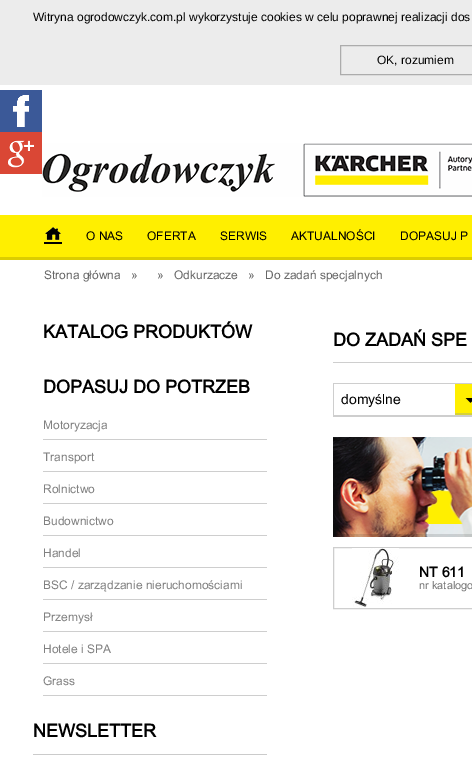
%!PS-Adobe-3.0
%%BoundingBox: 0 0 472 772
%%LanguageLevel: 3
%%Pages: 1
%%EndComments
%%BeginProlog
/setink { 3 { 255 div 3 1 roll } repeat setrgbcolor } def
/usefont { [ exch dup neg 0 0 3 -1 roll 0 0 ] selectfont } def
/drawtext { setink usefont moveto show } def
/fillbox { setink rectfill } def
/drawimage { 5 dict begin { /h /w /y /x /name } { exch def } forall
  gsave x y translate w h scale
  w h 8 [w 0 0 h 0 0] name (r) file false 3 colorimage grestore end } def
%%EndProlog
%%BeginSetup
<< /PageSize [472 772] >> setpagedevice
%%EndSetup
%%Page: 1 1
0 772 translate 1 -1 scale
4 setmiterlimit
0 0 472 772 255 255 255 fillbox
0 0 472 85 236 236 236 fillbox
(Witryna ogrodowczyk.com.pl wykorzystuje cookies w celu poprawnej realizacji dos) 33 21 /LiberationSans-Regular 12 0 0 0 drawtext
172 172 172 setink
340.5 45.5 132 29 rectstroke
(OK, rozumiem) 377 64 /LiberationSans-Regular 12 0 0 0 drawtext
(assets/img1.rgb) 0 90 42 42 drawimage
(assets/img2.rgb) 0 132 42 42 drawimage
(assets/img3.rgb) 42 143 430 54 drawimage
0 215 472 42 255 239 0 fillbox
0 257 472 3 219 205 0 fillbox
(assets/img4.rgb) 44 227 18 17 drawimage
(O NAS) 86 240 /Arial-Regular 12 0 0 0 drawtext
(OFERTA) 147 240 /Arial-Regular 12 0 0 0 drawtext
(SERWIS) 220 240 /Arial-Regular 12 0 0 0 drawtext
(AKTUALNOŚCI) 291 240 /Arial-Regular 12 0 0 0 drawtext
(DOPASUJ P) 400 240 /Arial-Regular 12 0 0 0 drawtext
(Strona główna) 44 279 /Arial-Regular 12 103 103 103 drawtext
(») 131 279 /Arial-Regular 12 103 103 103 drawtext
(») 157 279 /Arial-Regular 12 103 103 103 drawtext
(Odkurzacze) 174 279 /Arial-Regular 12 103 103 103 drawtext
(») 248 279 /Arial-Regular 12 103 103 103 drawtext
(Do zadań specjalnych) 265 279 /Arial-Regular 12 103 103 103 drawtext
(KATALOG PRODUKTÓW) 43 338 /Arial-Bold 18 0 0 0 drawtext
(DOPASUJ DO POTRZEB) 43 393 /Arial-Bold 18 0 0 0 drawtext
43 439 224 1 206 206 206 fillbox
(Motoryzacja) 43 429 /Arial-Regular 12 129 129 129 drawtext
43 471 224 1 206 206 206 fillbox
(Transport) 43 461 /Arial-Regular 12 129 129 129 drawtext
43 503 224 1 206 206 206 fillbox
(Rolnictwo) 43 493 /Arial-Regular 12 129 129 129 drawtext
43 535 224 1 206 206 206 fillbox
(Budownictwo) 43 525 /Arial-Regular 12 129 129 129 drawtext
43 567 224 1 206 206 206 fillbox
(Handel) 43 557 /Arial-Regular 12 129 129 129 drawtext
43 599 224 1 206 206 206 fillbox
(BSC / zarządzanie nieruchomościami) 43 589 /Arial-Regular 12 129 129 129 drawtext
43 631 224 1 206 206 206 fillbox
(Przemysł) 43 621 /Arial-Regular 12 129 129 129 drawtext
43 663 224 1 206 206 206 fillbox
(Hotele i SPA) 43 653 /Arial-Regular 12 129 129 129 drawtext
43 695 224 1 206 206 206 fillbox
(Grass) 43 685 /Arial-Regular 12 129 129 129 drawtext
(NEWSLETTER) 33 737 /Arial-Bold 18 0 0 0 drawtext
33 754 234 1 203 203 203 fillbox
333 362 139 1 206 206 206 fillbox
(DO ZADAŃ SPE) 333 346 /Arial-Bold 18 0 0 0 drawtext
(assets/img5.rgb) 455 384 17 31 drawimage
333 383 139 1 206 206 206 fillbox
333 415 139 2 206 206 206 fillbox
333 383 1 34 206 206 206 fillbox
(domyślne) 341 404 /Arial-Regular 14 0 0 0 drawtext
(assets/img6.rgb) 333 437 139 100 drawimage
206 206 206 setink
333.5 547.5 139 61 rectstroke
(assets/img7.rgb) 352 548 47 60 drawimage
(NT 611) 419 577 /Arial-Bold 14 0 0 0 drawtext
(nr katalogo) 419 589 /Arial-Regular 11 115 115 115 drawtext
showpage
%%EOF
